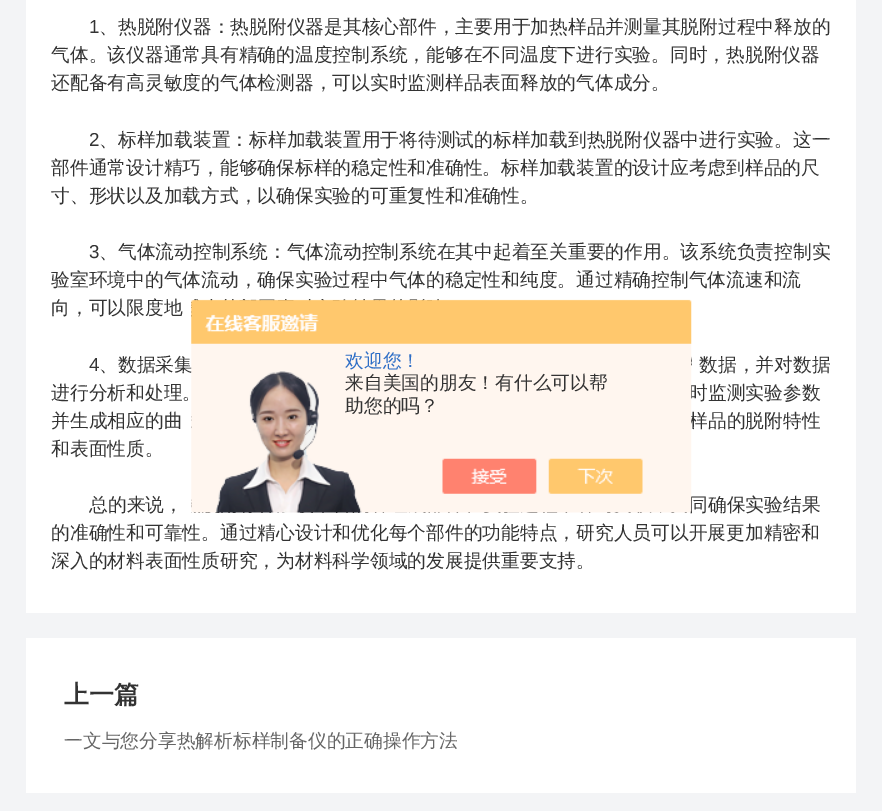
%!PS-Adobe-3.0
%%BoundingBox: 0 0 882 811
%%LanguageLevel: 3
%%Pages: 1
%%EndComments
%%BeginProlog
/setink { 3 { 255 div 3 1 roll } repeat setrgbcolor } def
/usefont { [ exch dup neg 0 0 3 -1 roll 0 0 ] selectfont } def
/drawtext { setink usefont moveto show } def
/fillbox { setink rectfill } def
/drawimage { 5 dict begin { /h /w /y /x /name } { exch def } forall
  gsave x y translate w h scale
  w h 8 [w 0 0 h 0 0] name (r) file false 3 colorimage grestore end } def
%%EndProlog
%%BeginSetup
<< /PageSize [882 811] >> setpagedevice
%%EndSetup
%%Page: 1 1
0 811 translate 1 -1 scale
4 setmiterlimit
0 0 882 811 243 244 246 fillbox
26 0 830 613 255 255 255 fillbox
(1) 89 33 /LiberationSans-Regular 18.75 51 51 51 drawtext
(、热脱附仪器：热脱附仪器是其核心部件，主要用于加热样品并测量其脱附过程中释放的) 99 33 /WenQuanYiZenHei-Medium 18.75 51 51 51 drawtext
(气体。该仪器通常具有精确的温度控制系统，能够在不同温度下进行实验。同时，热脱附仪器) 51 61 /WenQuanYiZenHei-Medium 18.75 51 51 51 drawtext
(还配备有高灵敏度的气体检测器，可以实时监测样品表面释放的气体成分。) 51 89 /WenQuanYiZenHei-Medium 18.75 51 51 51 drawtext
(2) 89 146 /LiberationSans-Regular 18.75 51 51 51 drawtext
(、标样加载装置：标样加载装置用于将待测试的标样加载到热脱附仪器中进行实验。这一) 99 146 /WenQuanYiZenHei-Medium 18.75 51 51 51 drawtext
(部件通常设计精巧，能够确保标样的稳定性和准确性。标样加载装置的设计应考虑到样品的尺) 51 174 /WenQuanYiZenHei-Medium 18.75 51 51 51 drawtext
(寸、形状以及加载方式，以确保实验的可重复性和准确性。) 51 202 /WenQuanYiZenHei-Medium 18.75 51 51 51 drawtext
(3) 89 258 /LiberationSans-Regular 18.75 51 51 51 drawtext
(、气体流动控制系统：气体流动控制系统在其中起着至关重要的作用。该系统负责控制实) 99 258 /WenQuanYiZenHei-Medium 18.75 51 51 51 drawtext
(验室环境中的气体流动，确保实验过程中气体的稳定性和纯度。通过精确控制气体流速和流) 51 286 /WenQuanYiZenHei-Medium 18.75 51 51 51 drawtext
(向，可以限度地) 51 314 /WenQuanYiZenHei-Medium 18.75 51 51 51 drawtext
(4) 89 371 /LiberationSans-Regular 18.75 51 51 51 drawtext
(、数据采集) 99 371 /WenQuanYiZenHei-Medium 18.75 51 51 51 drawtext
(数据，并对数据) 699 371 /WenQuanYiZenHei-Medium 18.75 51 51 51 drawtext
(进行分析和处理。) 51 399 /WenQuanYiZenHei-Medium 18.75 51 51 51 drawtext
(时监测实验参数) 689 399 /WenQuanYiZenHei-Medium 18.75 51 51 51 drawtext
(并生成相应的曲) 51 427 /WenQuanYiZenHei-Medium 18.75 51 51 51 drawtext
(样品的脱附特性) 689 427 /WenQuanYiZenHei-Medium 18.75 51 51 51 drawtext
(和表面性质。) 51 455 /WenQuanYiZenHei-Medium 18.75 51 51 51 drawtext
(总的来说，) 89 511 /WenQuanYiZenHei-Medium 18.75 51 51 51 drawtext
(同确保实验结果) 689 511 /WenQuanYiZenHei-Medium 18.75 51 51 51 drawtext
(的准确性和可靠性。通过精心设计和优化每个部件的功能特点，研究人员可以开展更加精密和) 51 539 /WenQuanYiZenHei-Medium 18.75 51 51 51 drawtext
(深入的材料表面性质研究，为材料科学领域的发展提供重要支持。) 51 567 /WenQuanYiZenHei-Medium 18.75 51 51 51 drawtext
26 638 830 155 255 255 255 fillbox
(上一篇) 64 703 /WenQuanYiZenHei-Bold 25 51 51 51 drawtext
(一文与您分享热解析标样制备仪的正确操作方法) 64 747 /WenQuanYiZenHei-Medium 18.75 102 102 102 drawtext
(assets/img1.rgb) 191 299 501 214 drawimage
(欢迎您！) 345 367 /WenQuanYiZenHei-Medium 18.75 46 110 198 drawtext
(来自美国的朋友！有什么可以帮) 345 389 /WenQuanYiZenHei-Medium 18.75 51 51 51 drawtext
(助您的吗？) 345 412 /WenQuanYiZenHei-Medium 18.75 51 51 51 drawtext
showpage
%%EOF
